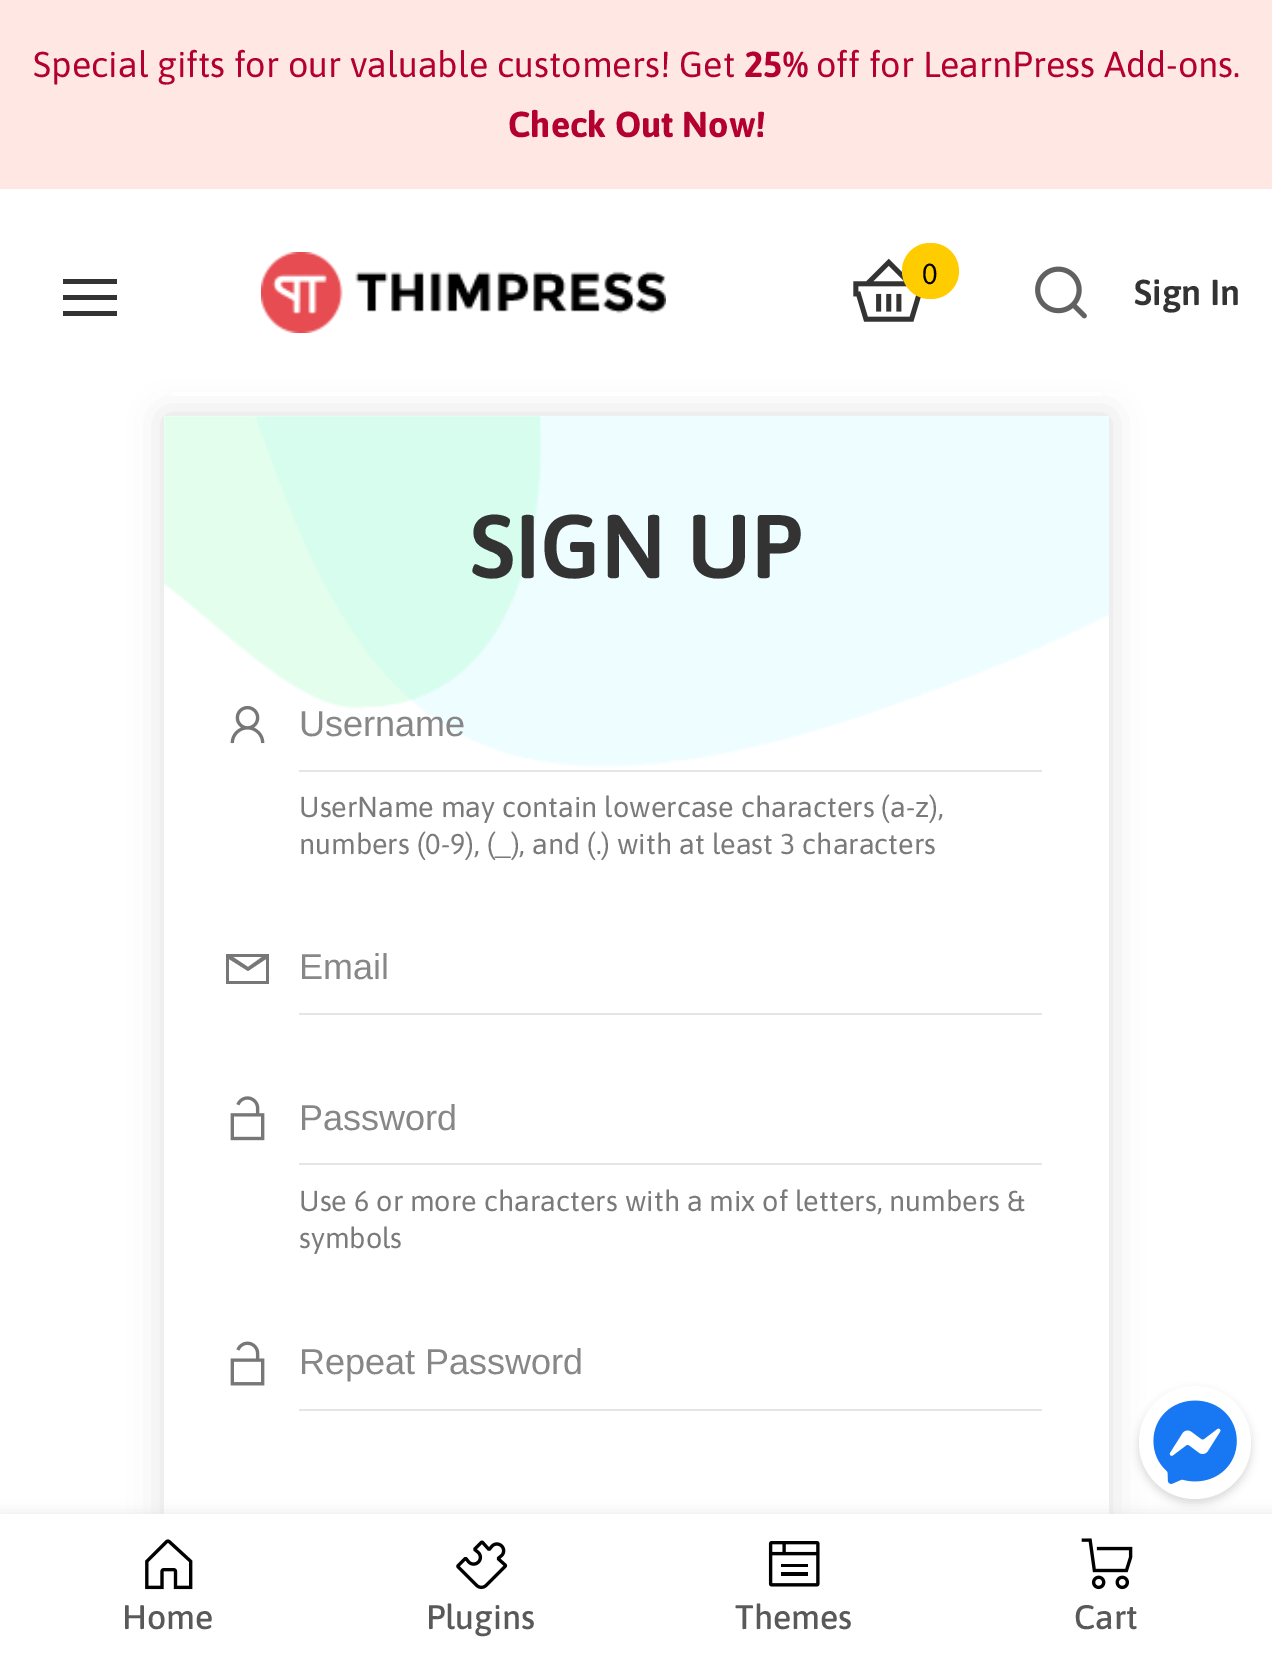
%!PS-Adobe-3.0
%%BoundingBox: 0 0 1272 1655
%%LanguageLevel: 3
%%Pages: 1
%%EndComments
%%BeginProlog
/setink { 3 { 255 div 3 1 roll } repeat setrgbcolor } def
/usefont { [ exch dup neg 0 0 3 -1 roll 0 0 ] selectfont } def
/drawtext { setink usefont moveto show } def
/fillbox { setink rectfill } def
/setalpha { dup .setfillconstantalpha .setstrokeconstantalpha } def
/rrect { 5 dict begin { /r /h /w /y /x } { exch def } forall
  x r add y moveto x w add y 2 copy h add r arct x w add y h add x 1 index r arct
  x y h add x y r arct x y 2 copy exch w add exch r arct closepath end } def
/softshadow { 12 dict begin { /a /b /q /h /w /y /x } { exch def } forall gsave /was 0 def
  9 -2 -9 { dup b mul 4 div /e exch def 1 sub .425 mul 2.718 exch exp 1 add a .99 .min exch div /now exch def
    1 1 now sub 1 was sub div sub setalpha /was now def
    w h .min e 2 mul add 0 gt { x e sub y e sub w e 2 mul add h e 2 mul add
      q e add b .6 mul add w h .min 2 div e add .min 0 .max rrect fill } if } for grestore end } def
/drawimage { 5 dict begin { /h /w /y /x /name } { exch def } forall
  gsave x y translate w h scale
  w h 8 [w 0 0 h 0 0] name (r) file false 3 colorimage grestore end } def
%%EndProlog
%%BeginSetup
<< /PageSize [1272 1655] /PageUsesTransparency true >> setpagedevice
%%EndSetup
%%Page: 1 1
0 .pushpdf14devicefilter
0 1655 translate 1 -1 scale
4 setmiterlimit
0 0 1272 1655 255 255 255 fillbox
221 221 221 setink
164 416 945 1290 0 17 1 softshadow
172 392 929 4 255 255 255 fillbox
0 0 1272 189 255 231 227 fillbox
(Special gifts for our valuable customers! Get) 33 77 /Asap-Regular 36 179 0 46 drawtext
(25%) 744 77 /Asap-Bold 36 179 0 46 drawtext
(off for LearnPress Add-ons.) 816 77 /Asap-Regular 36 179 0 46 drawtext
(Check Out Now!) 508 137 /Asap-Bold 36 179 0 46 drawtext
63 279 54 5 51 51 51 fillbox
63 295 54 5 51 51 51 fillbox
63 311 54 5 51 51 51 fillbox
(assets/img1.rgb) 261 252 405 81 drawimage
(assets/img2.rgb) 853 258 68 64 drawimage
255 204 0 setink
902 243 57 56 28 rrect fill
(0) 922 284 /Asap-Regular 29 1 1 1 drawtext
(assets/img3.rgb) 1035 266 52 53 drawimage
(Sign In) 1134 305 /Asap-SemiBold 36 51 51 51 drawtext
164 416 945 1098 255 255 255 fillbox
(assets/img4.rgb) 164 416 945 352 drawimage
(SIGN UP) 470 578 /Asap-SemiBold 90 51 51 51 drawtext
(assets/img5.rgb) 230 705 35 39 drawimage
299 770 743 2 229 229 229 fillbox
(Username) 299 736 /LiberationSans-Regular 36 135 135 135 drawtext
(UserName may contain lowercase characters \(a-z\),) 299 817 /Asap-Regular 28.8 122 122 122 drawtext
(numbers \(0-9\), \(_\), and \(.\) with at least 3 characters) 299 854 /Asap-Regular 28.8 122 122 122 drawtext
119 119 119 setink
226 954 moveto 226 984 lineto 269 984 lineto 269 954 lineto closepath 233 957 moveto 262 957 lineto 248 967 lineto closepath 229 959 moveto 248 971 lineto 266 959 lineto 266 981 lineto 229 981 lineto closepath fill
299 1013 743 2 229 229 229 fillbox
(Email) 299 979 /LiberationSans-Regular 36 135 135 135 drawtext
(assets/img6.rgb) 230 1096 35 45 drawimage
299 1163 743 2 229 229 229 fillbox
(Password) 299 1130 /LiberationSans-Regular 36 135 135 135 drawtext
(Use 6 or more characters with a mix of letters, numbers &) 299 1211 /Asap-Regular 28.8 122 122 122 drawtext
(symbols) 299 1248 /Asap-Regular 28.8 122 122 122 drawtext
(assets/img7.rgb) 230 1341 35 45 drawimage
299 1409 743 2 229 229 229 fillbox
(Repeat Password) 299 1374 /LiberationSans-Regular 36 135 135 135 drawtext
220 220 220 setink
0 1514 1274 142 0 7 0.6 softshadow
0 1514 1272 141 255 255 255 fillbox
0 0 0 setink
1139 1391 112 112 56 4.5 0.15 softshadow
255 255 255 setink
1139 1386 112 113 56 rrect fill
(assets/img8.rgb) 1153 1400 84 84 drawimage
(assets/img9.rgb) 145 1539 48 51 drawimage
(Home) 122 1629 /Asap-Medium 34 89 89 89 drawtext
(assets/img10.rgb) 456 1540 52 49 drawimage
(Plugins) 426 1629 /Asap-Medium 34 89 89 89 drawtext
(assets/img11.rgb) 768 1541 52 46 drawimage
(Themes) 735 1629 /Asap-Medium 34 89 89 89 drawtext
(assets/img12.rgb) 1081 1538 52 52 drawimage
(Cart) 1074 1629 /Asap-Medium 34 89 89 89 drawtext
.poppdf14devicefilter showpage
%%EOF
